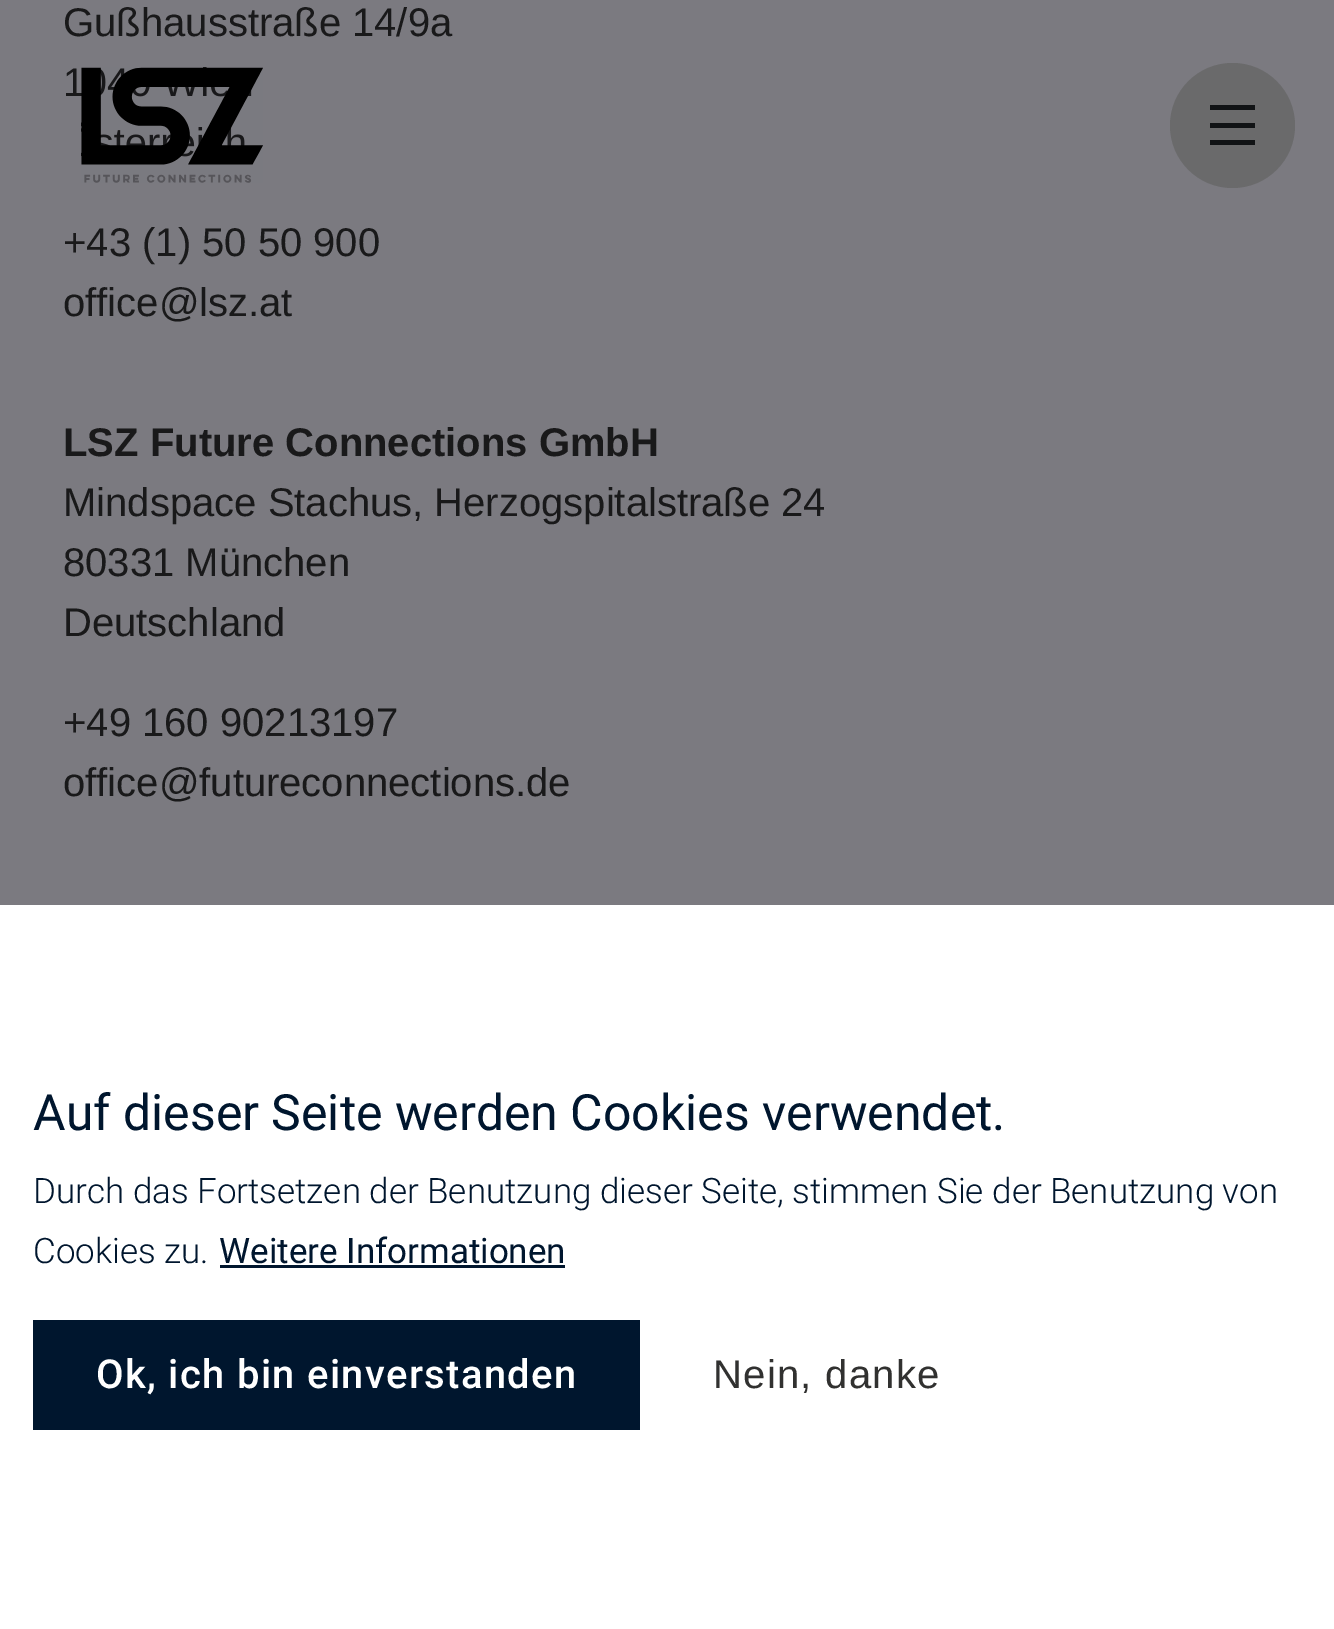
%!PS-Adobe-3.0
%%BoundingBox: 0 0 1334 1629
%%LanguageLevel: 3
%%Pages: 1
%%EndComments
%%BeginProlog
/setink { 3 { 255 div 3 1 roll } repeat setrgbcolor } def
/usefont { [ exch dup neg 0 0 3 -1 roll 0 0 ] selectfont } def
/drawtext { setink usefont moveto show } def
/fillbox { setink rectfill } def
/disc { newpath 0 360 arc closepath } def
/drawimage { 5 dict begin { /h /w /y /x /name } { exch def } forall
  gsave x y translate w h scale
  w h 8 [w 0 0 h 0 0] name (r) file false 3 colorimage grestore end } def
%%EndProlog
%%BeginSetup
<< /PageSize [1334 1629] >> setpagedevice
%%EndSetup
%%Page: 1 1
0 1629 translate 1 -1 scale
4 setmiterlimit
0 0 1334 1629 123 122 128 fillbox
(Gußhausstraße 14/9a) 63 36 /LiberationSans-Regular 40 25 25 26 drawtext
(1) 63 96 /LiberationSans-Regular 40 25 25 26 drawtext
(+43 \(1\) 50 50 900) 63 256 /LiberationSans-Regular 40 25 25 26 drawtext
(office@lsz.at) 63 316 /LiberationSans-Regular 40 25 25 26 drawtext
(LSZ Future Connections GmbH) 63 456 /LiberationSans-Bold 40 25 25 26 drawtext
(Mindspace Stachus, Herzogspitalstraße 24) 63 516 /LiberationSans-Regular 40 25 25 26 drawtext
(80331 München) 63 576 /LiberationSans-Regular 40 25 25 26 drawtext
(Deutschland) 63 636 /LiberationSans-Regular 40 25 25 26 drawtext
(+49 160 90213197) 63 736 /LiberationSans-Regular 40 25 25 26 drawtext
(office@futureconnections.de) 63 796 /LiberationSans-Regular 40 25 25 26 drawtext
(assets/img1.rgb) 81 67 182 116 drawimage
106 106 107 setink
1232.5 125.5 62.5 disc fill
1210 105 45 5 17 19 21 fillbox
1210 123 45 5 17 19 21 fillbox
1210 140 45 5 17 19 21 fillbox
0 905 1334 724 255 255 255 fillbox
(Auf dieser Seite werden Cookies verwendet.) 33 1130 /Roboto-Regular 50 0 22 46 drawtext
(Durch das Fortsetzen der Benutzung dieser Seite, stimmen Sie der Benutzung von) 33 1203 /Roboto-Light 35 0 22 46 drawtext
(Cookies zu.) 33 1263 /Roboto-Light 35 0 22 46 drawtext
(Weitere Informationen) 219 1263 /Roboto-Regular 35 0 22 46 drawtext
220 1265 345 3 0 22 46 fillbox
33 1320 607 110 0 22 46 fillbox
/Roboto-Medium 40 usefont
255 255 255 setink
96 1388 moveto 1.3 0 (Ok, ich bin einverstanden) ashow
/LiberationSans-Regular 40 usefont
49 49 48 setink
713 1388 moveto 1.3 0 (Nein, danke) ashow
showpage
%%EOF
